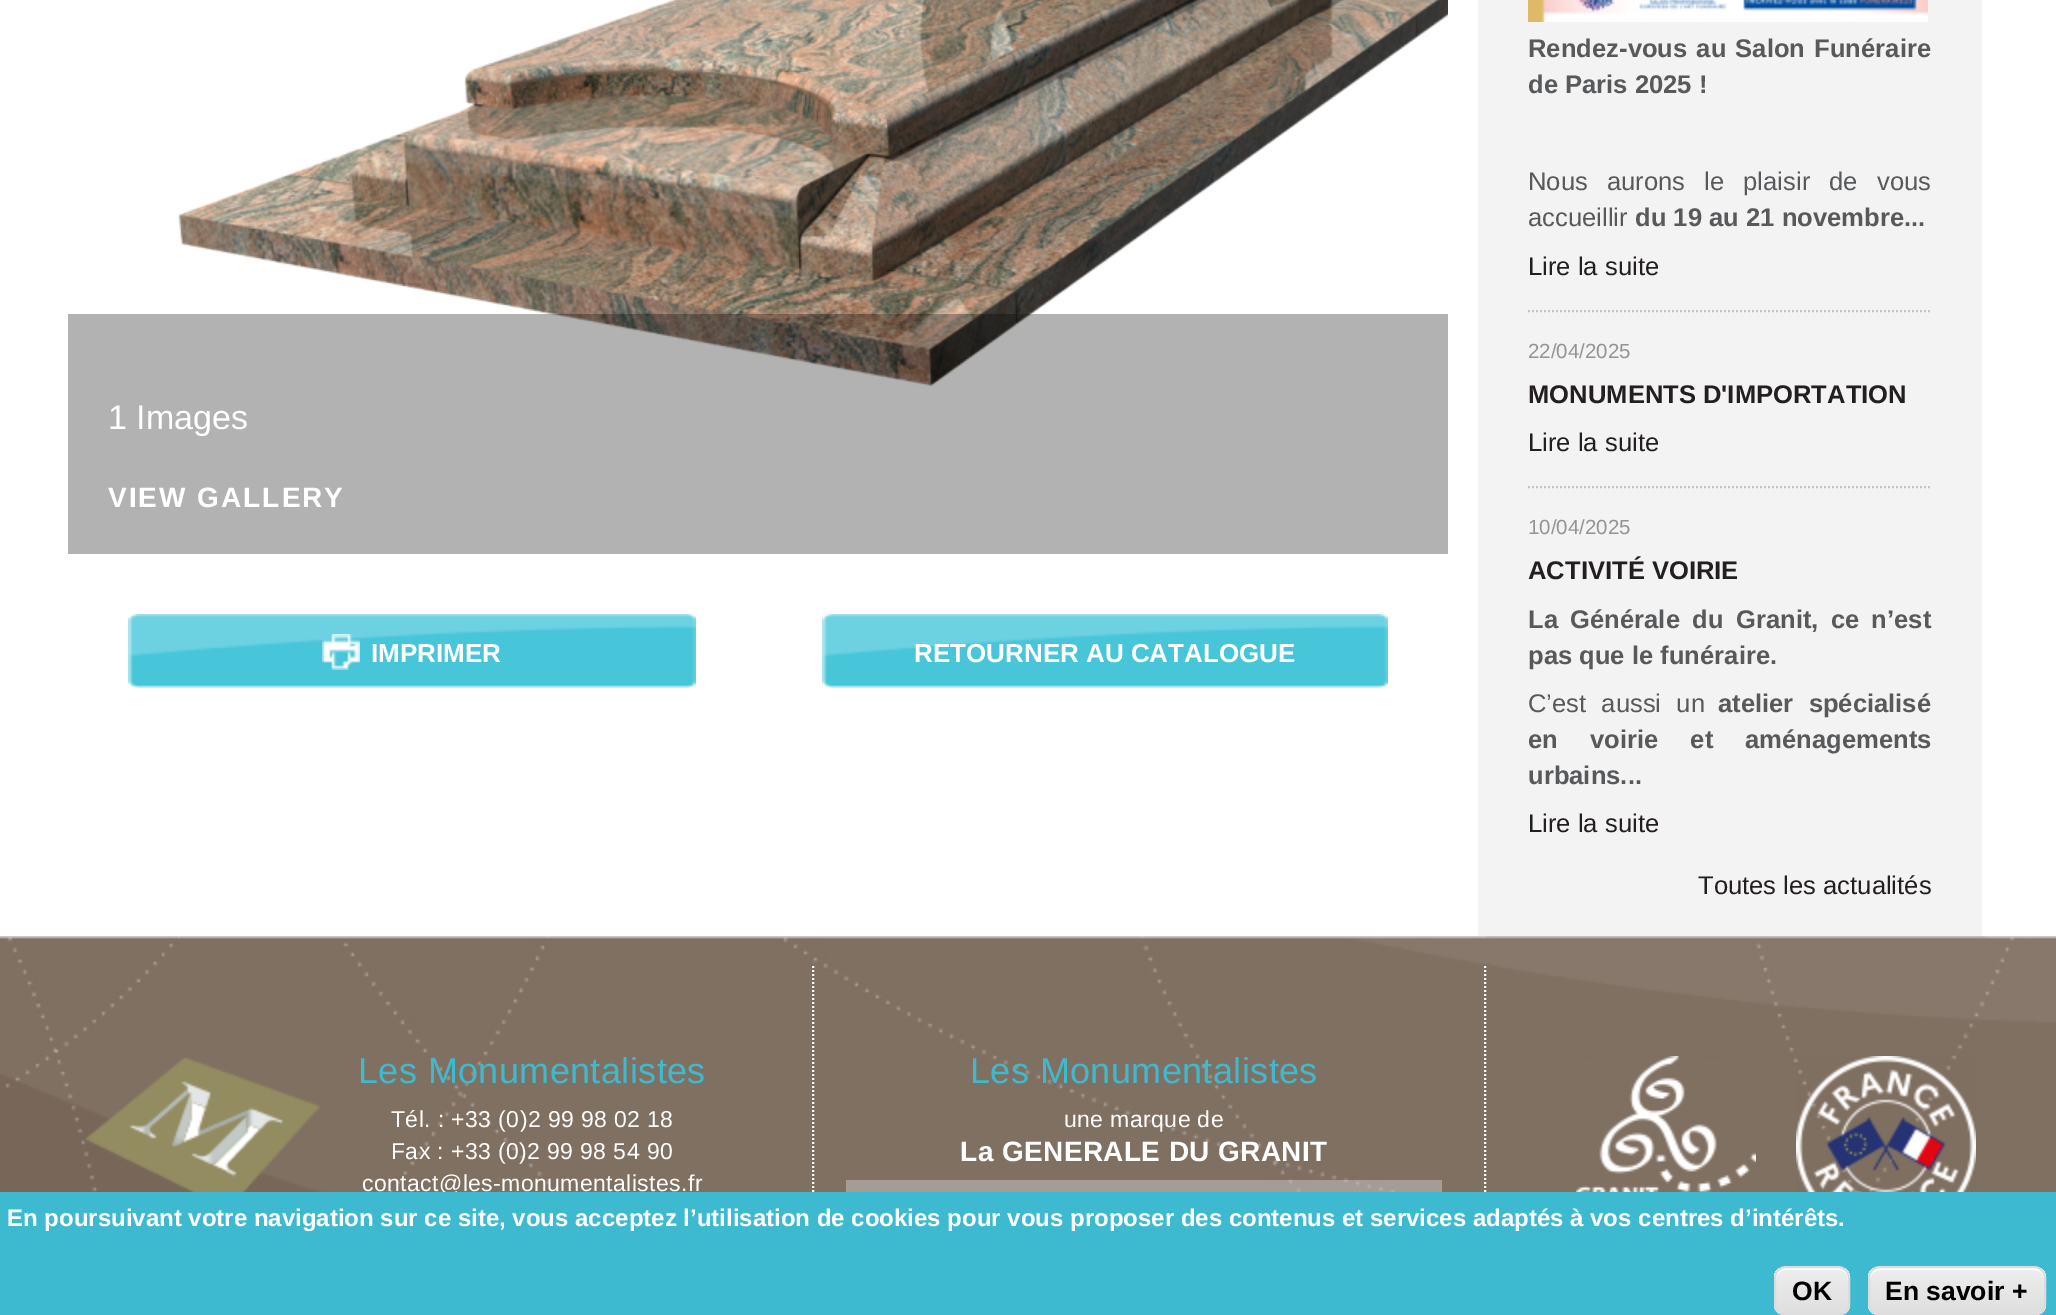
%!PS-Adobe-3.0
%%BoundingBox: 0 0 2056 1315
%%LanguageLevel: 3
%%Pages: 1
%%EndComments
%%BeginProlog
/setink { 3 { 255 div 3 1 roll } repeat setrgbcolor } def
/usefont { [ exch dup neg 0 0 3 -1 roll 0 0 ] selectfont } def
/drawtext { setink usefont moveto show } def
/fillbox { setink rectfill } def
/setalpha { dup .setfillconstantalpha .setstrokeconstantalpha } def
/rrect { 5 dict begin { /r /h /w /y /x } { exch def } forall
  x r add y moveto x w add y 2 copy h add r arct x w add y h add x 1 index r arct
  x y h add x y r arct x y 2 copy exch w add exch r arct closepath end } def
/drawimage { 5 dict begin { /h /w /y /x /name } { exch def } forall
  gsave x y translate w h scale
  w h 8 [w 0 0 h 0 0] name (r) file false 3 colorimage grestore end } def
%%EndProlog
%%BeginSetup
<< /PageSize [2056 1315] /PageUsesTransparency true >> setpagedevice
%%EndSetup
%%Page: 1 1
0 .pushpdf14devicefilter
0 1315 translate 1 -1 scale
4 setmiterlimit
0 0 2056 1315 255 255 255 fillbox
1980 0 2 936 244 244 245 fillbox
(assets/img1.rgb) 178 0 1270 387 drawimage
0.3 setalpha
68 314 1380 240 0 0 0 fillbox
1 setalpha
(1 Images) 108 429 /LiberationSans-Regular 34 255 255 255 drawtext
/LiberationSans-Bold 28 usefont
108 507 moveto 2 0 (VIEW GALLERY) ashow
(assets/img2.rgb) 128 614 568 74 drawimage
(assets/img3.rgb) 322 634 38 36 drawimage
(IMPRIMER) 371 662 /LiberationSans-Bold 26 255 255 255 drawtext
(assets/img4.rgb) 822 614 566 74 drawimage
(RETOURNER AU CATALOGUE) 914 662 /LiberationSans-Bold 26 255 255 255 drawtext
1478 0 502 936 243 243 244 fillbox
201 195 191 setink
2 setlinewidth
[2 2] 0 setdash
1528 311 moveto 1930 311 lineto stroke
(assets/img5.rgb) 1528 0 400 22 drawimage
/LiberationSans-Bold 25.6 usefont
88 89 91 setink
1528 57 moveto 2 0 32 (Rendez-vous au Salon Funéraire) widthshow
(de Paris 2025 !) 1528 93 /LiberationSans-Bold 25.6 88 89 91 drawtext
/LiberationSans-Regular 25.6 usefont
1528 190 moveto 12 0 32 (Nous aurons le plaisir de vous) widthshow
(accueillir) 1528 226 /LiberationSans-Regular 25.6 88 89 91 drawtext
(du 19 au 21 novembre...) 1635 226 /LiberationSans-Bold 25.6 88 89 91 drawtext
(Lire la suite) 1528 275 /LiberationSans-Regular 25.6 35 31 32 drawtext
201 195 191 setink
1528 487 moveto 1930 487 lineto stroke
(22/04/2025) 1528 358 /LiberationSans-Regular 20.5 146 148 151 drawtext
(MONUMENTS D'IMPORTATION) 1528 403 /LiberationSans-Bold 25.6 35 31 32 drawtext
(Lire la suite) 1528 451 /LiberationSans-Regular 25.6 35 31 32 drawtext
(10/04/2025) 1528 534 /LiberationSans-Regular 20.5 146 148 151 drawtext
(ACTIVITÉ VOIRIE) 1528 579 /LiberationSans-Bold 25.6 35 31 32 drawtext
88 89 91 setink
1528 628 moveto 5.25 0 32 (La Générale du Granit, ce n’est) widthshow
(pas que le funéraire.) 1528 664 /LiberationSans-Bold 25.6 88 89 91 drawtext
/LiberationSans-Regular 25.6 usefont
1528 712 moveto 8 0 32 (C’est aussi un) widthshow
/LiberationSans-Bold 25.6 usefont
1718 712 moveto 8 0 32 (atelier spécialisé) widthshow
1528 748 moveto 25 0 32 (en voirie et aménagements) widthshow
(urbains...) 1528 784 /LiberationSans-Bold 25.6 88 89 91 drawtext
(Lire la suite) 1528 832 /LiberationSans-Regular 25.6 35 31 32 drawtext
(Toutes les actualités) 1698 894 /LiberationSans-Regular 25.6 35 31 32 drawtext
(assets/img6.rgb) 0 936 2056 256 drawimage
255 255 255 setink
813 966 moveto 813 1278 lineto stroke
(assets/img7.rgb) 86 1057 234 135 drawimage
/LiberationSans-Regular 36 usefont
61 186 208 setink
358 1083 moveto 0.4 0 (Les Monumentalistes) ashow
/LiberationSans-Regular 23 usefont
255 255 255 setink
391 1127 moveto 0.4 0 (Tél. : +33 \(0\)2 99 98 02 18) ashow
391 1159 moveto 0.4 0 (Fax : +33 \(0\)2 99 98 54 90) ashow
362 1191 moveto 0.4 0 (contact@les-monumentalistes.fr) ashow
/LiberationSans-Regular 36 usefont
61 186 208 setink
970 1083 moveto 0.4 0 (Les Monumentalistes) ashow
/LiberationSans-Regular 23 usefont
255 255 255 setink
1064 1127 moveto 0.4 0 (une marque de) ashow
/LiberationSans-Bold 28 usefont
960 1161 moveto 0.4 0 (La GENERALE DU GRANIT) ashow
0.5 setalpha
846 1180 596 12 200 200 200 fillbox
1 setalpha
255 255 255 setink
1485 966 moveto 1485 1278 lineto stroke
(assets/img8.rgb) 1576 1056 180 136 drawimage
(assets/img9.rgb) 1796 1056 180 136 drawimage
0 1192 2056 123 61 186 208 fillbox
(En poursuivant votre navigation sur ce site, vous acceptez l’utilisation de cookies pour vous proposer des contenus et services adaptés à vos centres d’intérêts.) 7 1226 /LiberationSans-Bold 24 255 255 255 drawtext
gsave
1774 1266 76 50 12 rrect clip newpath
gsave 1774 1268 moveto 1850 1268 lineto 1850 1314 lineto 1774 1314 lineto closepath clip newpath
<< /ShadingType 2 /ColorSpace /DeviceRGB /Coords [1776 1268 1776 1314] /Extend [true true] /Function << /FunctionType 3 /Domain [0 1] /Functions [<< /FunctionType 2 /Domain [0 1] /C0 [0.929 0.929 0.929] /C1 [0.929 0.929 0.929] /N 1 >> << /FunctionType 2 /Domain [0 1] /C0 [0.929 0.929 0.929] /C1 [0.875 0.875 0.875] /N 1 >>] /Bounds [0.05] /Encode [0 1 0 1] >> >> shfill grestore
grestore
1786 1270 moveto 1838 1270 lineto 1844 1270 1848 1274 1848 1280 curveto 1848 1267 1840 1268 1829 1268 curveto 1795 1268 lineto 1784 1268 1776 1267 1776 1280 curveto 1776 1274 1780 1270 1786 1270 curveto closepath fill
220 220 220 setink
[] 0 setdash
1775 1267 74 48 11 rrect stroke
(OK) 1792 1300 /LiberationSans-Bold 26.5 0 0 0 drawtext
gsave
1868 1266 178 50 12 rrect clip newpath
gsave 1868 1268 moveto 2046 1268 lineto 2046 1314 lineto 1868 1314 lineto closepath clip newpath
<< /ShadingType 2 /ColorSpace /DeviceRGB /Coords [1870 1268 1870 1314] /Extend [true true] /Function << /FunctionType 3 /Domain [0 1] /Functions [<< /FunctionType 2 /Domain [0 1] /C0 [0.929 0.929 0.929] /C1 [0.929 0.929 0.929] /N 1 >> << /FunctionType 2 /Domain [0 1] /C0 [0.929 0.929 0.929] /C1 [0.875 0.875 0.875] /N 1 >>] /Bounds [0.05] /Encode [0 1 0 1] >> >> shfill grestore
grestore
255 255 255 setink
1880 1270 moveto 2034 1270 lineto 2040 1270 2044 1274 2044 1280 curveto 2044 1278 lineto 2044 1272 2040 1268 2034 1268 curveto 1880 1268 lineto 1874 1268 1870 1272 1870 1278 curveto 1870 1280 lineto 1870 1274 1874 1270 1880 1270 curveto closepath fill
220 220 220 setink
1869 1267 176 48 11 rrect stroke
(En savoir +) 1885 1300 /LiberationSans-Bold 26.5 0 0 0 drawtext
.poppdf14devicefilter showpage
%%EOF
